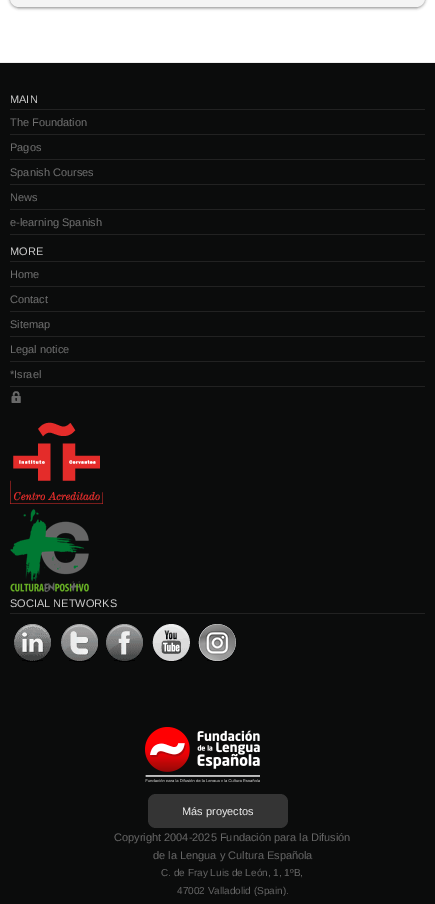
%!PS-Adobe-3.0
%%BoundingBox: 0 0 435 904
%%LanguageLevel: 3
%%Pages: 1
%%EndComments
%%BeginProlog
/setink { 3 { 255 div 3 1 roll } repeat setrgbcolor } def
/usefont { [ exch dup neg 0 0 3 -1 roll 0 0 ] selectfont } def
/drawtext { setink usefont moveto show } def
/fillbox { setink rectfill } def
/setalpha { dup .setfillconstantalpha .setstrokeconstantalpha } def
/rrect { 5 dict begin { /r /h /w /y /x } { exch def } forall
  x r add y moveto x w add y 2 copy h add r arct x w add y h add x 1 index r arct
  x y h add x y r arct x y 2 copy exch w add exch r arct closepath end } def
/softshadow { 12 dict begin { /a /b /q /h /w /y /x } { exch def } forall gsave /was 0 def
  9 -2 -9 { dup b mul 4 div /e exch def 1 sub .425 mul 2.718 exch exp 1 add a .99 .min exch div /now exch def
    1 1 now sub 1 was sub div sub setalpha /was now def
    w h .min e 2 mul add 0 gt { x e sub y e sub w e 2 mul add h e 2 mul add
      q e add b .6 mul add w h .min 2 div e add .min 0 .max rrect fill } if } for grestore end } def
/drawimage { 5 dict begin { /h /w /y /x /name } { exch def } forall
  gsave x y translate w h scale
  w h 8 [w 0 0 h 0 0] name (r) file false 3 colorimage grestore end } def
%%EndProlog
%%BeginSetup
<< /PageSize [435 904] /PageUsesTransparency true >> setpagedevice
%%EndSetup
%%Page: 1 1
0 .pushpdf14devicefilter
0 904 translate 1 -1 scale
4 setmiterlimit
0 0 435 904 255 255 255 fillbox
136 136 136 setink
10 -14 415 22 9 1.5 1 softshadow
244 244 244 setink
10 -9 415 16 9 rrect fill
0 63 435 841 11 12 12 fillbox
0 62 435 1 238 238 238 fillbox
10 109 415 1 34 34 34 fillbox
(MAIN) 10 103 /LiberationSans-Regular 11 204 204 204 drawtext
10 134 415 1 34 34 34 fillbox
(The Foundation) 10 126 /LiberationSans-Regular 11 111 111 111 drawtext
10 159 415 1 34 34 34 fillbox
(Pagos) 10 151 /LiberationSans-Regular 11 111 111 111 drawtext
10 184 415 1 34 34 34 fillbox
(Spanish Courses) 10 176 /LiberationSans-Regular 11 111 111 111 drawtext
10 209 415 1 34 34 34 fillbox
(News) 10 201 /LiberationSans-Regular 11 111 111 111 drawtext
10 234 415 1 34 34 34 fillbox
(e-learning Spanish) 10 226 /LiberationSans-Regular 11 111 111 111 drawtext
10 261 415 1 34 34 34 fillbox
(MORE) 10 255 /LiberationSans-Regular 11 204 204 204 drawtext
10 286 415 1 34 34 34 fillbox
(Home) 10 278 /LiberationSans-Regular 11 111 111 111 drawtext
10 311 415 1 34 34 34 fillbox
(Contact) 10 303 /LiberationSans-Regular 11 111 111 111 drawtext
10 336 415 1 34 34 34 fillbox
(Sitemap) 10 328 /LiberationSans-Regular 11 111 111 111 drawtext
10 361 415 1 34 34 34 fillbox
(Legal notice) 10 353 /LiberationSans-Regular 11 111 111 111 drawtext
10 386 415 1 34 34 34 fillbox
(*Israel) 10 378 /LiberationSans-Regular 11 111 111 111 drawtext
(assets/img1.rgb) 11 391 10 12 drawimage
(assets/img2.rgb) 10 422 93 82 drawimage
(assets/img3.rgb) 10 509 79 83 drawimage
10 613 415 1 34 34 34 fillbox
(SOCIAL NETWORKS) 10 607 /LiberationSans-Regular 11 204 204 204 drawtext
(assets/img4.rgb) 14 624 37 38 drawimage
(assets/img5.rgb) 61 624 37 38 drawimage
(assets/img6.rgb) 106 624 37 38 drawimage
(assets/img7.rgb) 152 624 38 38 drawimage
(assets/img8.rgb) 198 624 38 38 drawimage
(assets/img9.rgb) 145 727 115 55 drawimage
52 52 52 setink
148 794 140 34 8 rrect fill
(Más proyectos) 182 815 /LiberationSans-Regular 11 238 238 238 drawtext
(Copyright 2004-2025 Fundación para la Difusión) 114 841 /LiberationSans-Regular 11 102 102 102 drawtext
(de la Lengua y Cultura Española) 153 859 /LiberationSans-Regular 11 102 102 102 drawtext
(C. de Fray Luis de León, 1, 1ºB,) 161 876 /LiberationSans-Regular 10 102 102 102 drawtext
(47002 Valladolid \(Spain\).) 177 894 /LiberationSans-Regular 10 102 102 102 drawtext
.poppdf14devicefilter showpage
%%EOF
